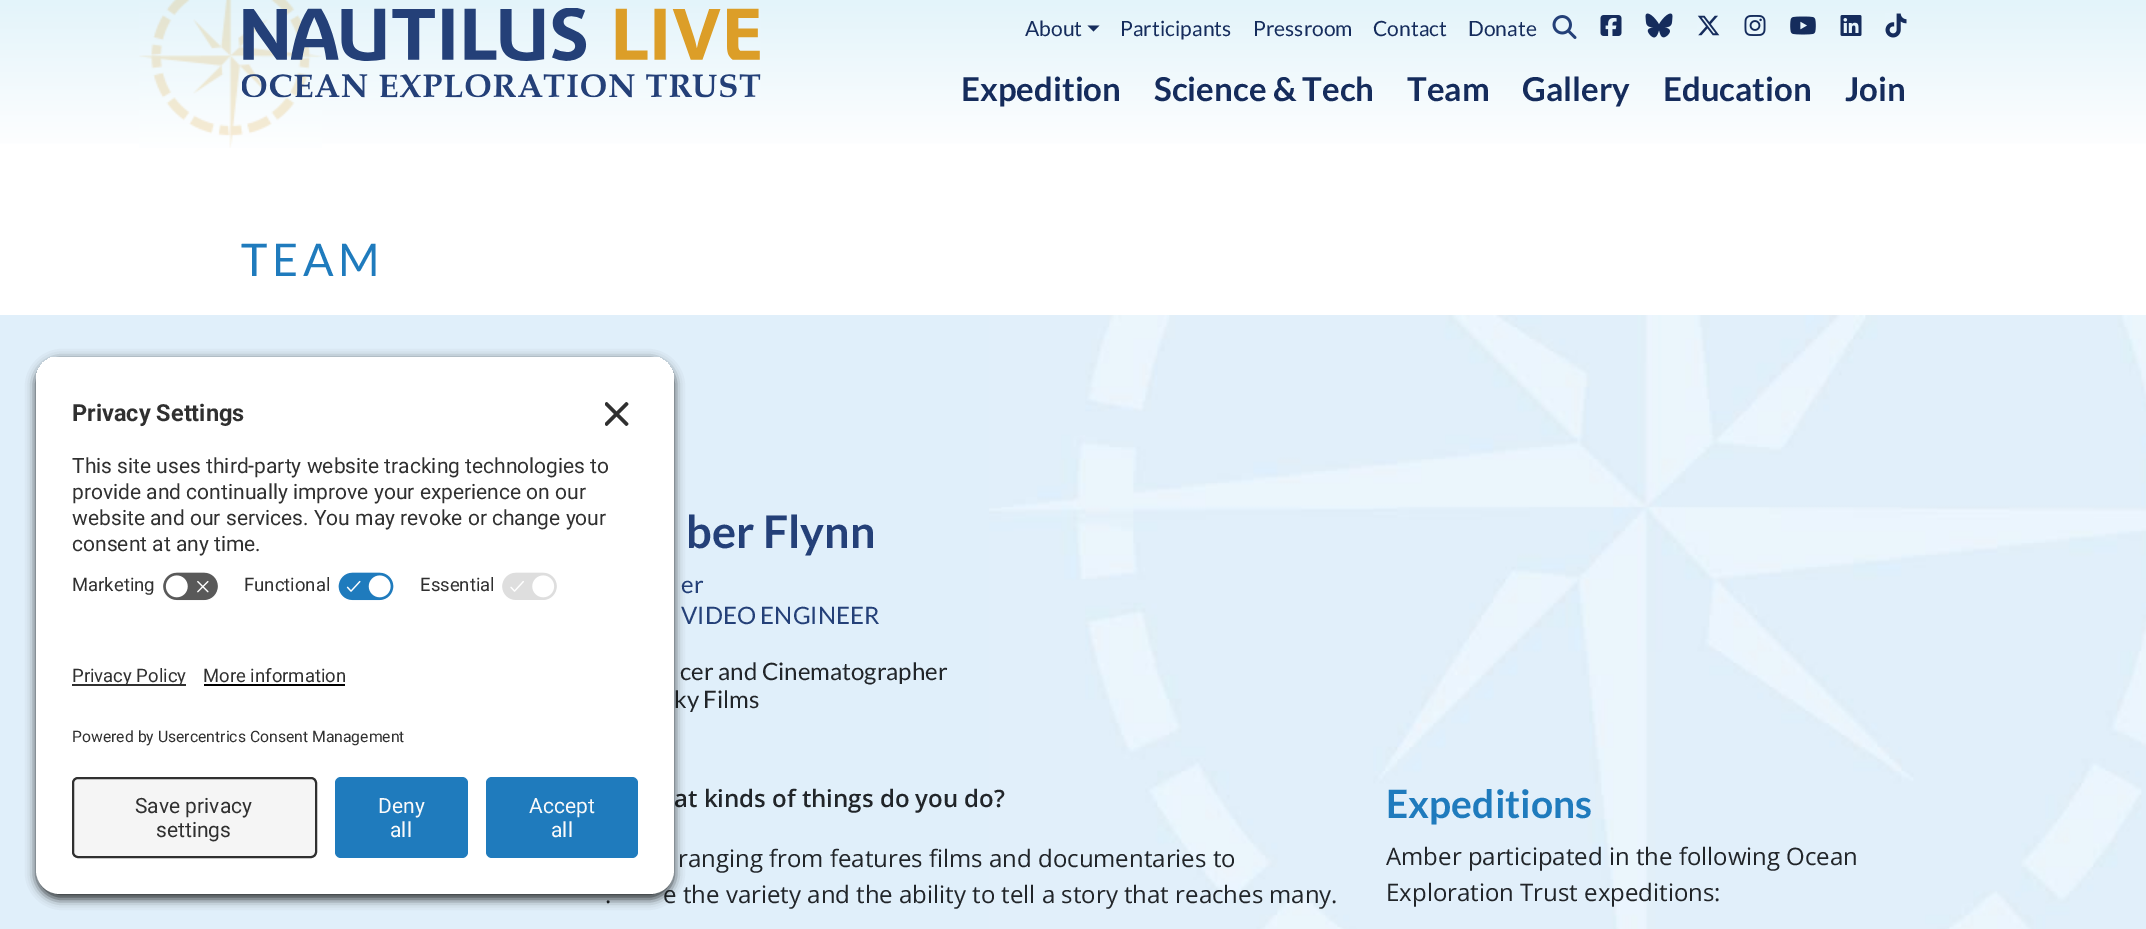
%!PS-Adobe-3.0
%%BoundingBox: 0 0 2146 929
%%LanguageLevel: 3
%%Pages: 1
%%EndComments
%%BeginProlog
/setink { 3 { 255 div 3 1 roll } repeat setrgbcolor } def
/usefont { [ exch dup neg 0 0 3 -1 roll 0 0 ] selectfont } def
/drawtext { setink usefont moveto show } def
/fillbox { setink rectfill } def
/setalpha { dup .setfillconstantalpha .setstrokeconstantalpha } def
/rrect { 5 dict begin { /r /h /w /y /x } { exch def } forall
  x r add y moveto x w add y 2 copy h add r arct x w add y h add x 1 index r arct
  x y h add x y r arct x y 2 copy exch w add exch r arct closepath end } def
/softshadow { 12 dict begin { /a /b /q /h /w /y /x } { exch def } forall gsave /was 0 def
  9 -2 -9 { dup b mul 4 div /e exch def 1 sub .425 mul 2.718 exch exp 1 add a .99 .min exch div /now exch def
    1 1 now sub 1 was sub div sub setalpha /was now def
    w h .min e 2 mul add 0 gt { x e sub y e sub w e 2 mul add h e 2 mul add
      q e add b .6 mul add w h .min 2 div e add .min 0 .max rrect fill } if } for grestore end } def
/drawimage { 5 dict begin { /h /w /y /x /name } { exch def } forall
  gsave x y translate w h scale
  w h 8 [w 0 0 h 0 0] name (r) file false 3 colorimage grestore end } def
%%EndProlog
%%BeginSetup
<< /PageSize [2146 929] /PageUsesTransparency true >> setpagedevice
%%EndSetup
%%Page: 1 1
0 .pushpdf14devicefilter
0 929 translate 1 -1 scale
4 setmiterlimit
0 0 2146 929 255 255 255 fillbox
gsave 0 0 moveto 2146 0 lineto 2146 144 lineto 0 144 lineto closepath clip newpath
<< /ShadingType 2 /ColorSpace /DeviceRGB /Coords [1073 -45 1073 158] /Extend [true true] /Function << /FunctionType 3 /Domain [0 1] /Functions [<< /FunctionType 2 /Domain [0 1] /C0 [0.878 0.937 0.98] /C1 [0.867 0.945 0.976] /N 1 >> << /FunctionType 2 /Domain [0 1] /C0 [0.867 0.945 0.976] /C1 [1 1 1] /N 1 >>] /Bounds [0.05] /Encode [0 1 0 1] >> >> shfill grestore
(assets/img1.rgb) 139 0 183 148 drawimage
(assets/img2.rgb) 242 8 519 90 drawimage
(About) 1025 36 /Lato-Regular 21 21 44 92 drawtext
1087.5 25.5 moveto 1099.5 25.5 lineto 1093.5 31.5 lineto closepath fill
(Participants) 1120 36 /Lato-Regular 21 21 44 92 drawtext
(Pressroom) 1253 36 /Lato-Regular 21 21 44 92 drawtext
(Contact) 1373 36 /Lato-Regular 21 21 44 92 drawtext
(Donate) 1468 36 /Lato-Regular 21 21 44 92 drawtext
(assets/img3.rgb) 1552 15 25 24 drawimage
(assets/img4.rgb) 1600 15 22 21 drawimage
(assets/img5.rgb) 1645 13 28 25 drawimage
(assets/img6.rgb) 1697 15 23 21 drawimage
(assets/img7.rgb) 1744 15 22 21 drawimage
(assets/img8.rgb) 1790 16 26 19 drawimage
(assets/img9.rgb) 1840 15 22 21 drawimage
(assets/img10.rgb) 1885 13 22 25 drawimage
(Expedition) 961 101 /Lato-Bold 33 21 44 92 drawtext
(Science & Tech) 1154 101 /Lato-Bold 33 21 44 92 drawtext
(Team) 1407 101 /Lato-Bold 33 21 44 92 drawtext
(Gallery) 1522 101 /Lato-Bold 33 21 44 92 drawtext
(Education) 1663 101 /Lato-Bold 33 21 44 92 drawtext
(Join) 1845 101 /Lato-Bold 33 21 44 92 drawtext
/Lato-Regular 45 usefont
31 123 189 setink
241 276 moveto 4.5 0 (TEAM) ashow
0 315 989 614 224 239 250 fillbox
(assets/img11.rgb) 989 315 1157 614 drawimage
(ber Flynn) 686 548 /Lato-Bold 45 36 64 120 drawtext
(er) 681 593 /Lato-Regular 24 36 64 120 drawtext
(VIDEO ENGINEER) 681 624 /Lato-Regular 24 36 64 120 drawtext
(cer and Cinematographer) 680 680 /Lato-Regular 24 33 37 41 drawtext
(ky Films) 674 708 /Lato-Regular 24 33 37 41 drawtext
(at kinds of things do you do?) 674 807 /OpenSans-SemiBold 24 33 37 41 drawtext
(ranging from features films and documentaries to) 678 867 /OpenSans-Regular 24 33 37 41 drawtext
(.) 605 903 /OpenSans-Regular 24 33 37 41 drawtext
(e the variety and the ability to tell a story that reaches many.) 663 903 /OpenSans-Regular 24 33 37 41 drawtext
(Expeditions) 1386 818 /Lato-Bold 39 31 123 189 drawtext
(Amber participated in the following Ocean) 1386 865 /OpenSans-Regular 24 33 37 41 drawtext
(Exploration Trust expeditions:) 1386 901 /OpenSans-Regular 24 33 37 41 drawtext
0 0 0 setink
36 360 638 539 24 5 0.8 softshadow
gsave
60 356 moveto 650 356 lineto 663.5 356 674 366.5 674 380 curveto 674 624 lineto 36 624 lineto 36 380 lineto 36 366.5 46.5 356 60 356 curveto closepath clip newpath
36 357 638 267 255 255 255 fillbox
36 357 638 207 255 255 255 fillbox
grestore
(Privacy Settings) 72 421 /Roboto-Bold 23.5 48 48 48 drawtext
(assets/img12.rgb) 605 402 24 24 drawimage
(This site uses third-party website tracking technologies to) 72 473 /Roboto-Regular 21 48 48 48 drawtext
(provide and continually improve your experience on our) 72 499 /Roboto-Regular 21 48 48 48 drawtext
(website and our services. You may revoke or change your) 72 525 /Roboto-Regular 21 48 48 48 drawtext
(consent at any time.) 72 551 /Roboto-Regular 21 48 48 48 drawtext
(Marketing) 72 591 /Roboto-Regular 18.5 48 48 48 drawtext
(assets/img13.rgb) 163 572 55 29 drawimage
(Functional) 244 591 /Roboto-Regular 18.5 48 48 48 drawtext
(assets/img14.rgb) 338 572 56 29 drawimage
(Essential) 420 591 /Roboto-Regular 18.5 48 48 48 drawtext
(assets/img15.rgb) 502 572 55 28 drawimage
255 255 255 setink
36 624 moveto 674 624 lineto 674 870 lineto 674 883.5 663.5 894 650 894 curveto 60 894 lineto 46.5 894 36 883.5 36 870 curveto closepath fill
72 684 114 2 48 48 48 fillbox
(Privacy Policy) 72 682 /Roboto-Regular 18.5 48 48 48 drawtext
(More information) 203 682 /Roboto-Regular 18.5 48 48 48 drawtext
204 684 141 2 0 0 0 fillbox
(Powered by Usercentrics Consent Management) 72 742 /Roboto-Regular 15.75 48 48 48 drawtext
245 245 245 setink
73 778 243 79 5 rrect gsave fill grestore
48 48 48 setink
2 setlinewidth
stroke
(Save privacy) 135 813 /Roboto-Regular 21 48 48 48 drawtext
(settings) 156 837 /Roboto-Regular 21 48 48 48 drawtext
31 123 189 setink
335 777 133 81 6 rrect fill
(Deny) 378 813 /Roboto-Regular 21 250 250 250 drawtext
(all) 390 837 /Roboto-Regular 21 250 250 250 drawtext
31 123 189 setink
486 777 152 81 6 rrect fill
(Accept) 529 813 /Roboto-Regular 21 250 250 250 drawtext
(all) 551 837 /Roboto-Regular 21 250 250 250 drawtext
.poppdf14devicefilter showpage
%%EOF
